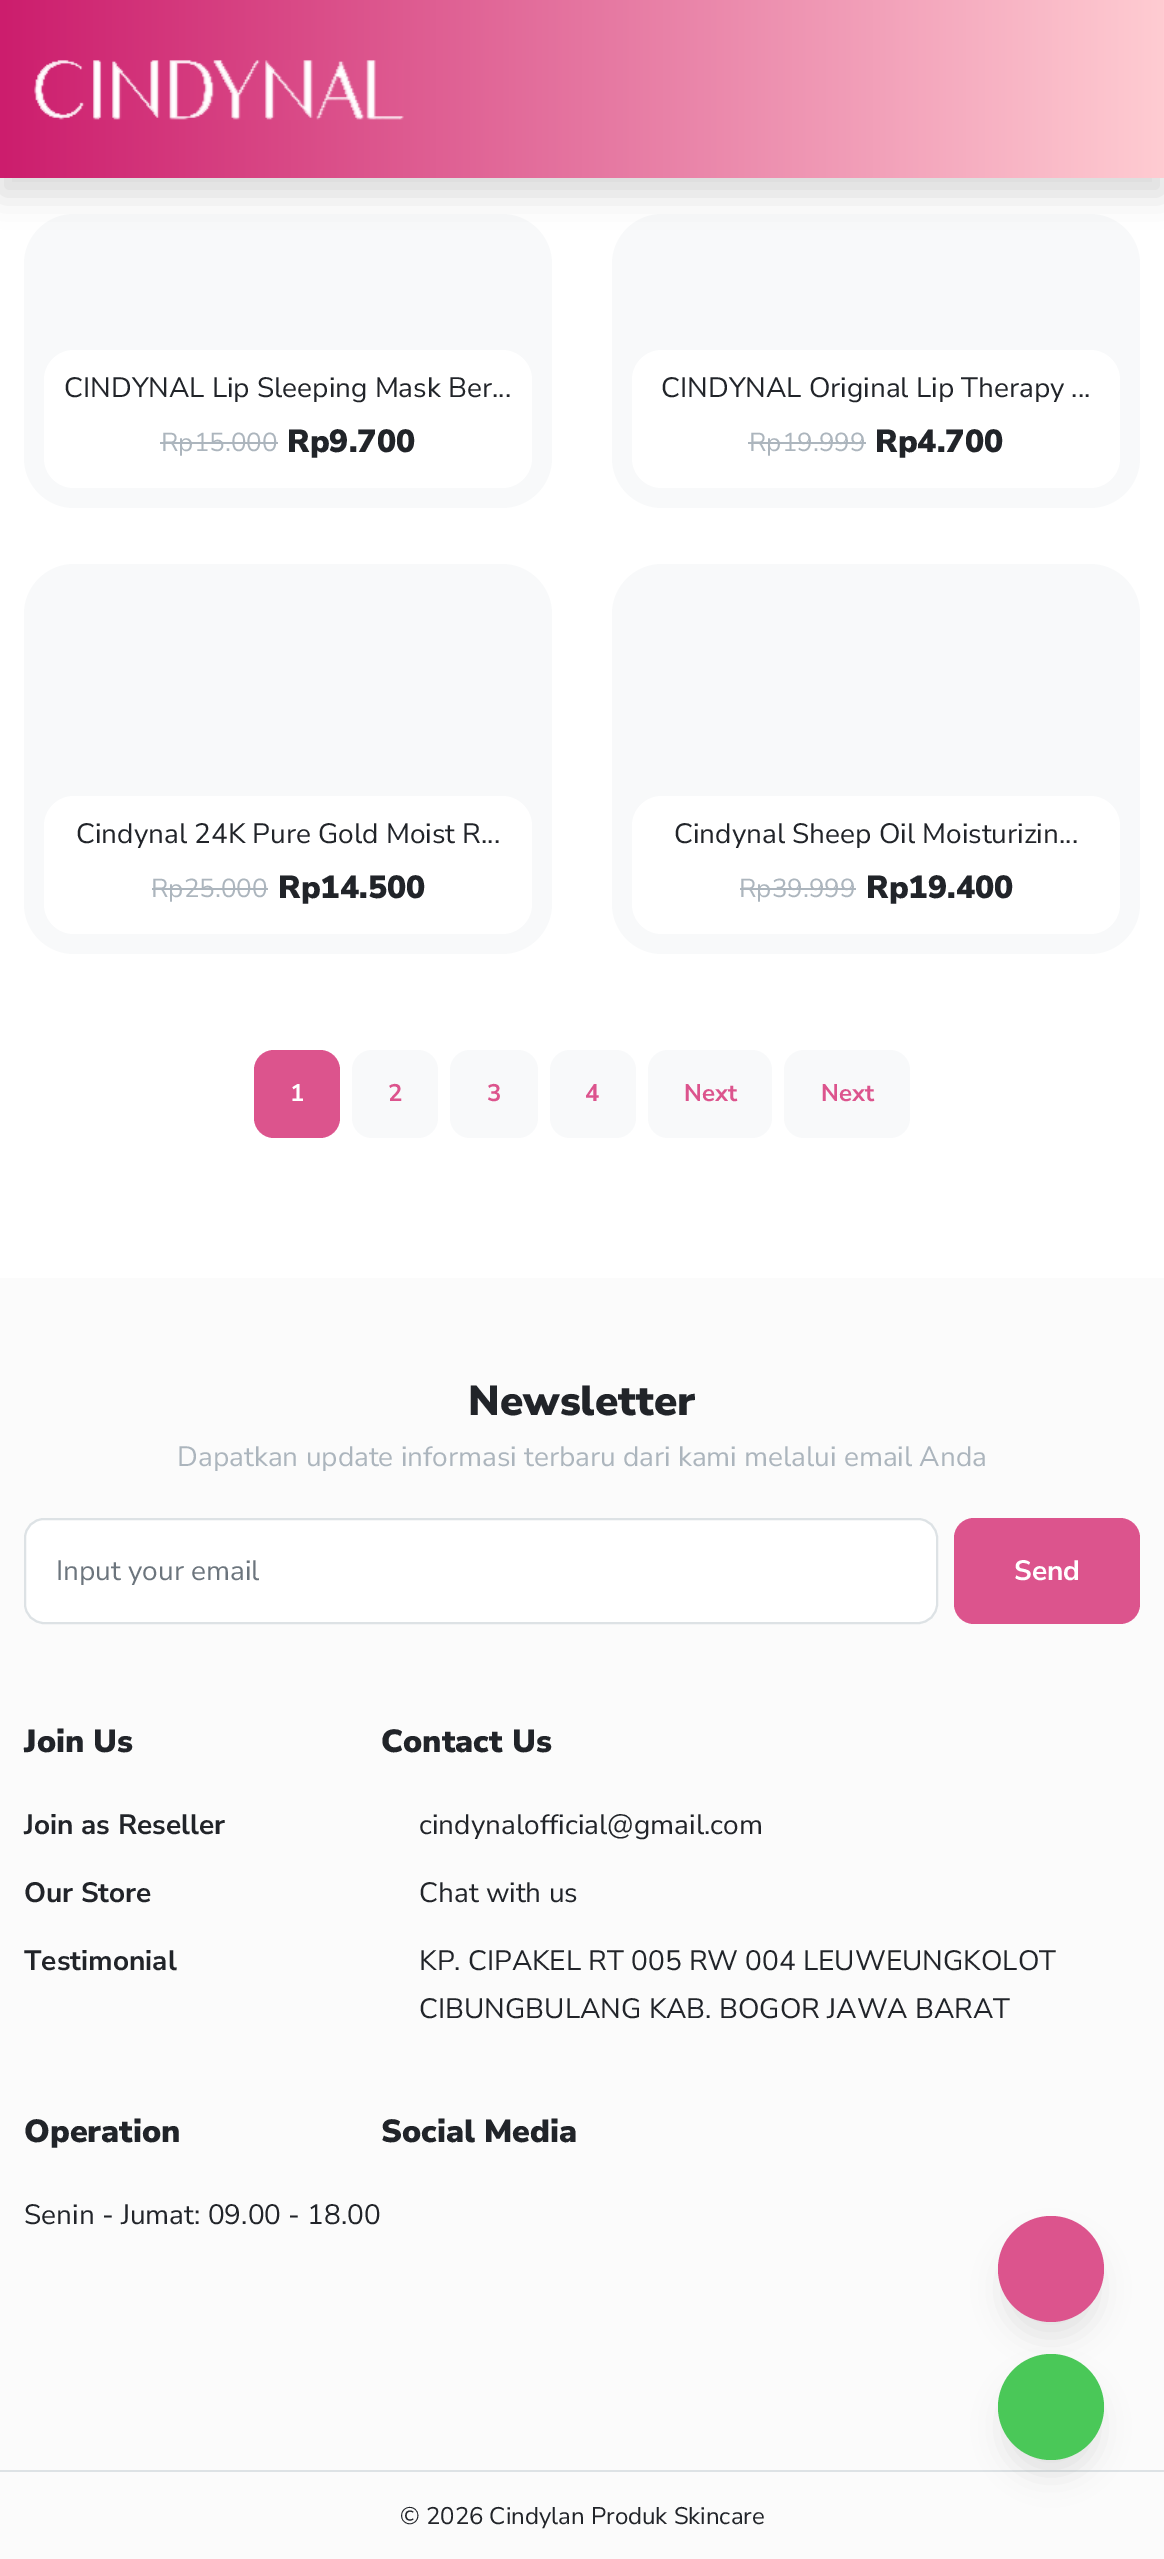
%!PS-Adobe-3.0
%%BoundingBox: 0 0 1164 2559
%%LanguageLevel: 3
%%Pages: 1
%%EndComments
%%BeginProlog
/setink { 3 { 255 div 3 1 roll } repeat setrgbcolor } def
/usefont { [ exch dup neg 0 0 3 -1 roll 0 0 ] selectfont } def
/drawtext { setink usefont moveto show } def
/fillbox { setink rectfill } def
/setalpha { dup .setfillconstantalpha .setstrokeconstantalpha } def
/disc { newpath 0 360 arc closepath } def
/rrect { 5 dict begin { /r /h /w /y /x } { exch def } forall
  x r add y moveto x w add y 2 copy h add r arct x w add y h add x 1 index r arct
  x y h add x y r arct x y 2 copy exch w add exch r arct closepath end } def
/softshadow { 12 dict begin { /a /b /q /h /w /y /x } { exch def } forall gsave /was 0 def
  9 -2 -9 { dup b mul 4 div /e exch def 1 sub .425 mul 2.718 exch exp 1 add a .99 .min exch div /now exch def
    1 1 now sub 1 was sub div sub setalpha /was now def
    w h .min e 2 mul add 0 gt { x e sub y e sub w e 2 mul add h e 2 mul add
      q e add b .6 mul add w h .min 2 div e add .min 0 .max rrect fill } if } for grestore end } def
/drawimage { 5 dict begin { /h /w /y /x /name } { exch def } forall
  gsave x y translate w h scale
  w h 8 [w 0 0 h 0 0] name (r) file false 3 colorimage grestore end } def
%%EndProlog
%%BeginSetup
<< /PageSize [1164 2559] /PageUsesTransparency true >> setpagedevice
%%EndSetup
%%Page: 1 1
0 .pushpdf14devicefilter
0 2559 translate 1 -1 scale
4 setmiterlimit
0 0 1164 2559 255 255 255 fillbox
248 249 250 setink
24 214 528 294 50 rrect fill
612 214 528 294 50 rrect fill
0 0 0 setink
0 16 1164 178 0 16 0.15 softshadow
gsave 0 0 moveto 1164 0 lineto 1164 178 lineto 0 178 lineto closepath clip newpath
<< /ShadingType 2 /ColorSpace /DeviceRGB /Coords [0 89 1164 89] /Extend [true true] /Function << /FunctionType 2 /Domain [0 1] /C0 [0.8 0.114 0.427] /C1 [1 0.8 0.824] /N 1 >> >> shfill grestore
(assets/img1.rgb) 34 60 370 60 drawimage
255 255 255 setink
44 350 488 138 30 rrect fill
(CINDYNAL Lip Sleeping Mask Ber...) 64 397 /NunitoSans-Regular 28 33 36 41 drawtext
(Rp15.000) 161 451 /NunitoSans-Regular 26 172 181 189 drawtext
160 442 118 2 172 181 189 fillbox
(Rp9.700) 287 452 /NunitoSans-Black 32 33 36 41 drawtext
255 255 255 setink
632 350 488 138 30 rrect fill
(CINDYNAL Original Lip Therapy ...) 661 397 /NunitoSans-Regular 28 33 36 41 drawtext
(Rp19.999) 749 451 /NunitoSans-Regular 26 172 181 189 drawtext
748 442 118 2 172 181 189 fillbox
(Rp4.700) 875 452 /NunitoSans-Black 32 33 36 41 drawtext
248 249 250 setink
24 564 528 390 50 rrect fill
255 255 255 setink
44 796 488 138 30 rrect fill
(Cindynal 24K Pure Gold Moist R...) 76 843 /NunitoSans-Regular 28 33 36 41 drawtext
(Rp25.000) 151 897 /NunitoSans-Regular 26 172 181 189 drawtext
152 888 116 2 172 181 189 fillbox
(Rp14.500) 278 898 /NunitoSans-Black 32 33 36 41 drawtext
248 249 250 setink
612 564 528 390 50 rrect fill
255 255 255 setink
632 796 488 138 30 rrect fill
(Cindynal Sheep Oil Moisturizin...) 674 843 /NunitoSans-Regular 28 33 36 41 drawtext
(Rp39.999) 739 897 /NunitoSans-Regular 26 172 181 189 drawtext
740 888 116 2 172 181 189 fillbox
(Rp19.400) 866 898 /NunitoSans-Black 32 33 36 41 drawtext
220 84 141 setink
254 1050 86 88 20 rrect fill
(1) 290 1101 /NunitoSans-Bold 24 255 255 255 drawtext
248 249 250 setink
352 1050 86 88 20 rrect fill
(2) 388 1101 /NunitoSans-Bold 24 220 84 141 drawtext
248 249 250 setink
450 1050 88 88 20 rrect fill
(3) 487 1101 /NunitoSans-Bold 24 220 84 141 drawtext
248 249 250 setink
550 1050 86 88 20 rrect fill
(4) 585 1101 /NunitoSans-Bold 24 220 84 141 drawtext
248 249 250 setink
648 1050 124 88 20 rrect fill
(Next) 684 1101 /NunitoSans-Bold 24 220 84 141 drawtext
248 249 250 setink
784 1050 126 88 20 rrect fill
(Next) 821 1101 /NunitoSans-Bold 24 220 84 141 drawtext
0 1278 1164 1281 251 251 251 fillbox
(Newsletter) 468 1415 /NunitoSans-Black 42 33 36 41 drawtext
(Dapatkan update informasi terbaru dari kami melalui email Anda) 177 1466 /NunitoSans-Regular 28 172 181 189 drawtext
255 255 255 setink
25 1519 912 104 19 rrect gsave fill grestore
221 226 229 setink
2 setlinewidth
stroke
(Input your email) 56 1580 /NunitoSans-Regular 28 108 117 125 drawtext
220 84 141 setink
954 1518 186 106 20 rrect fill
(Send) 1014 1580 /NunitoSans-Bold 28 255 255 255 drawtext
(Join Us) 24 1752 /NunitoSans-Black 32 33 36 41 drawtext
(Join as Reseller) 24 1834 /NunitoSans-Bold 28 33 36 41 drawtext
(Our Store) 24 1902 /NunitoSans-Bold 28 33 36 41 drawtext
(Testimonial) 24 1970 /NunitoSans-Bold 28 33 36 41 drawtext
(Contact Us) 381 1752 /NunitoSans-Black 32 33 36 41 drawtext
(cindynalofficial@gmail.com) 419 1834 /NunitoSans-Regular 28 33 36 41 drawtext
(Chat with us) 419 1902 /NunitoSans-Regular 28 33 36 41 drawtext
(KP. CIPAKEL RT 005 RW 004 LEUWEUNGKOLOT) 419 1970 /NunitoSans-Regular 28 33 36 41 drawtext
(CIBUNGBULANG KAB. BOGOR JAWA BARAT) 419 2018 /NunitoSans-Regular 28 33 36 41 drawtext
(Operation) 24 2142 /NunitoSans-Black 32 33 36 41 drawtext
(Senin - Jumat: 09.00 - 18.00) 24 2224 /NunitoSans-Regular 28 33 36 41 drawtext
(Social Media) 381 2142 /NunitoSans-Black 32 33 36 41 drawtext
0 2470 1164 2 221 226 229 fillbox
(© 2026 Cindylan Produk Skincare) 400 2524 /NunitoSans-Regular 24 33 36 41 drawtext
0 0 0 setink
1004 2242 94 94 47 15 0.1 softshadow
220 84 141 setink
1051 2269 53 disc fill
0 0 0 setink
1004 2380 94 94 47 15 0.1 softshadow
74 200 88 setink
1051 2407 53 disc fill
.poppdf14devicefilter showpage
%%EOF
